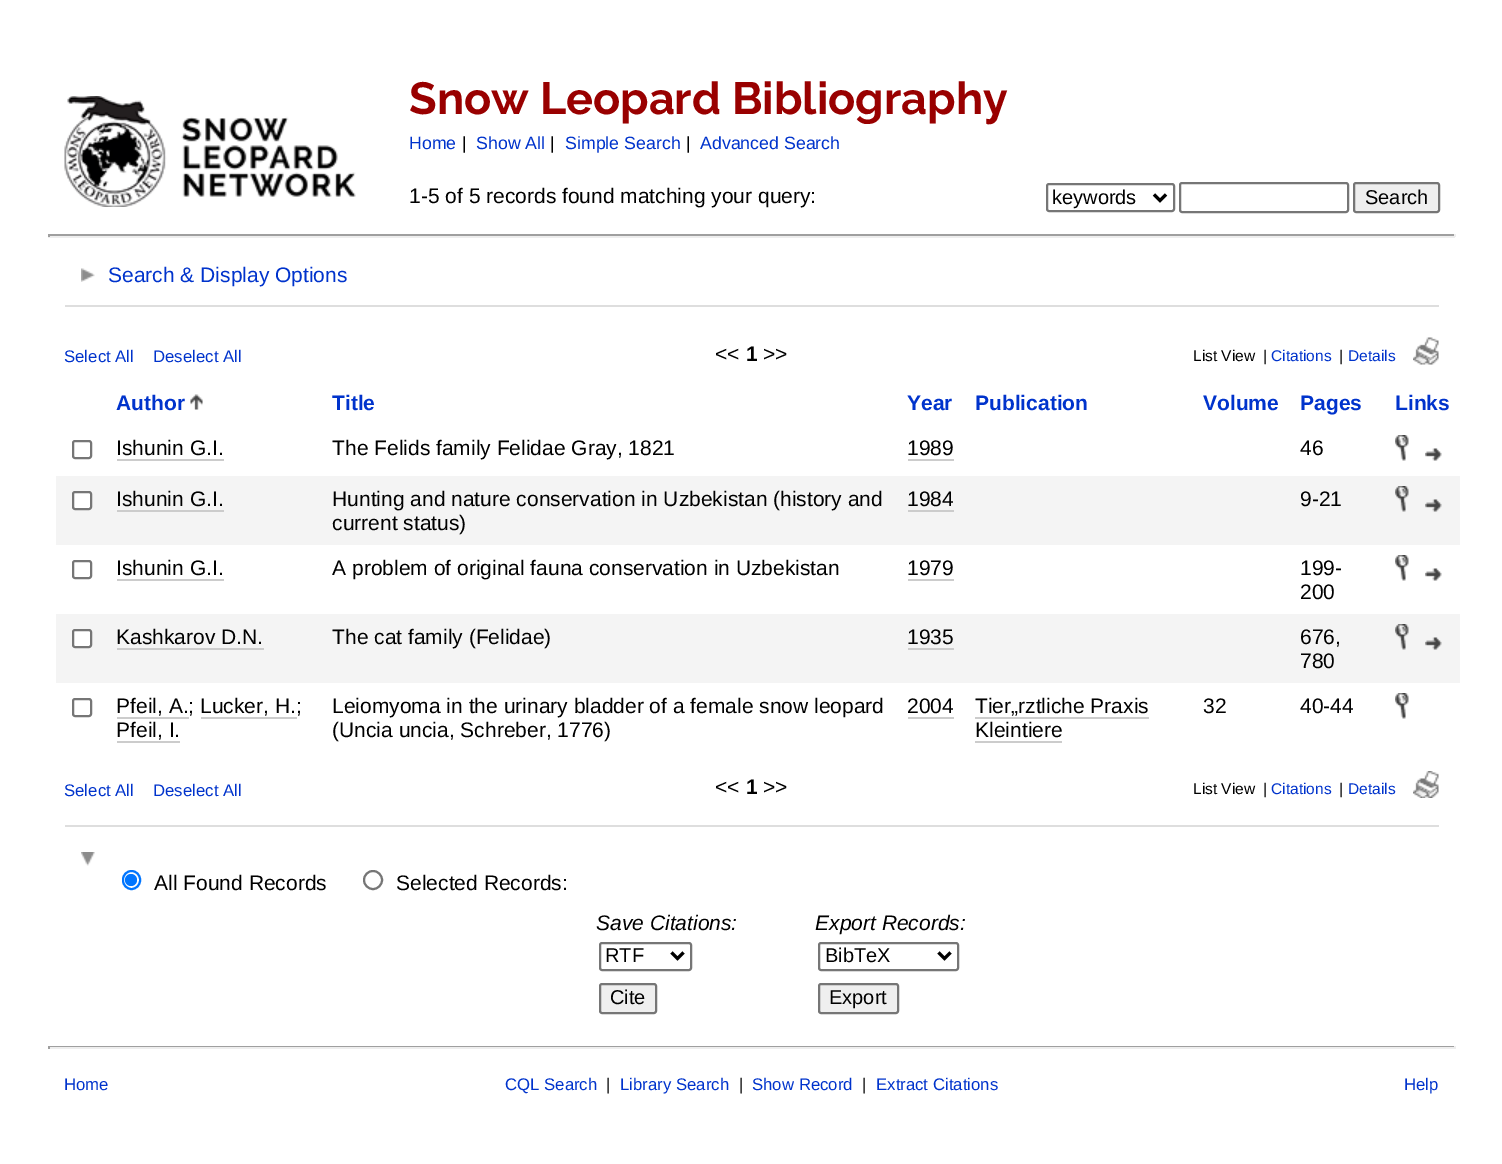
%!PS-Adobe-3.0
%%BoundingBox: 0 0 1502 1164
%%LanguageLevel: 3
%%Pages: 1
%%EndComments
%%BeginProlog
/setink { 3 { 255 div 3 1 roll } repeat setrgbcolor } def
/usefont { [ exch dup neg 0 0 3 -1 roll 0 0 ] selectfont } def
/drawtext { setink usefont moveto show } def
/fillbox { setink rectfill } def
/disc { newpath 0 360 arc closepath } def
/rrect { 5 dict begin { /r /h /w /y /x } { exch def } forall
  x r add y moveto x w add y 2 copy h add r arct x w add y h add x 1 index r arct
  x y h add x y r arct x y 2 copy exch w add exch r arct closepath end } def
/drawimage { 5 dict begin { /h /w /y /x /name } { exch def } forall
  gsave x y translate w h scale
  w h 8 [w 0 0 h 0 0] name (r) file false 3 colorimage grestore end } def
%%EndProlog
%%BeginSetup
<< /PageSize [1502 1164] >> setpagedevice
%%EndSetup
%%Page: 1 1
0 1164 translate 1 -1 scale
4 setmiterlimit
0 0 1502 1164 255 255 255 fillbox
(assets/img1.rgb) 64 96 292 111 drawimage
(Snow Leopard Bibliography) 409 114 /Raleway-Bold 45 153 0 0 drawtext
(Home) 409 149 /LiberationSans-Regular 17.75 0 51 204 drawtext
(|) 462 149 /LiberationSans-Regular 17.75 0 0 0 drawtext
(Show All) 476 149 /LiberationSans-Regular 17.75 0 51 204 drawtext
(|) 550 149 /LiberationSans-Regular 17.75 0 0 0 drawtext
(Simple Search) 565 149 /LiberationSans-Regular 17.75 0 51 204 drawtext
(|) 686 149 /LiberationSans-Regular 17.75 0 0 0 drawtext
(Advanced Search) 700 149 /LiberationSans-Regular 17.75 0 51 204 drawtext
118 118 118 setink
2 setlinewidth
1047 184 127 27 2 rrect stroke
0 0 0 setink
3 setlinewidth
1154 194.5 moveto 1160 200.5 lineto 1166 194.5 lineto stroke
(keywords) 1052 204 /LiberationSans-Regular 20 0 0 0 drawtext
118 118 118 setink
2 setlinewidth
1180 183 168 29 2 rrect stroke
239 239 239 setink
1354 183 85 29 2 rrect gsave fill grestore
118 118 118 setink
stroke
(Search) 1365 204 /LiberationSans-Regular 20 0 0 0 drawtext
(1-5 of 5 records found matching your query:) 409 203 /LiberationSans-Regular 21 0 0 0 drawtext
48 234 1407 2 159 159 159 fillbox
1454 234 2 3 238 238 238 fillbox
48 236 1407 2 238 238 238 fillbox
48 234 2 3 159 159 159 fillbox
(assets/img2.rgb) 81 268 14 14 drawimage
(Search & Display Options) 108 282 /LiberationSans-Regular 21 0 51 204 drawtext
65 305 1374 2 222 222 222 fillbox
(Select All) 64 362 /LiberationSans-Regular 16.75 0 51 204 drawtext
(Deselect All) 153 362 /LiberationSans-Regular 16.75 0 51 204 drawtext
(<<) 715 361 /LiberationSans-Regular 21 0 0 0 drawtext
(1) 746 361 /LiberationSans-Bold 21 0 0 0 drawtext
(>>) 763 361 /LiberationSans-Regular 21 0 0 0 drawtext
(List View) 1193 361 /LiberationSans-Regular 15.5 0 0 0 drawtext
(|) 1263 361 /LiberationSans-Regular 15.5 0 0 0 drawtext
(Citations) 1271 361 /LiberationSans-Regular 15.5 0 51 204 drawtext
(|) 1339 361 /LiberationSans-Regular 15.5 0 0 0 drawtext
(Details) 1348 361 /LiberationSans-Regular 15.5 0 51 204 drawtext
(assets/img3.rgb) 1413 337 26 28 drawimage
(Author) 116 410 /LiberationSans-Bold 21 0 51 204 drawtext
(assets/img4.rgb) 190 394 13 16 drawimage
(Title) 332 410 /LiberationSans-Bold 21 0 51 204 drawtext
(Year) 907 410 /LiberationSans-Bold 21 0 51 204 drawtext
(Publication) 975 410 /LiberationSans-Bold 21 0 51 204 drawtext
(Volume) 1203 410 /LiberationSans-Bold 21 0 51 204 drawtext
(Pages) 1300 410 /LiberationSans-Bold 21 0 51 204 drawtext
(Links) 1395 410 /LiberationSans-Bold 21 0 51 204 drawtext
118 118 118 setink
73 441 18 17 2 rrect stroke
(Ishunin G.I.) 116 455 /LiberationSans-Regular 21 0 0 0 drawtext
117 459 107 2 204 204 204 fillbox
(The Felids family Felidae Gray, 1821) 332 455 /LiberationSans-Regular 21 0 0 0 drawtext
(1989) 907 455 /LiberationSans-Regular 21 0 0 0 drawtext
908 459 46 2 204 204 204 fillbox
(46) 1300 455 /LiberationSans-Regular 21 0 0 0 drawtext
(assets/img5.rgb) 1395 435 14 26 drawimage
(assets/img6.rgb) 1425 448 17 13 drawimage
56 476 1404 69 244 244 244 fillbox
255 255 255 setink
73 492 18 17 2 rrect gsave fill grestore
118 118 118 setink
stroke
(Ishunin G.I.) 116 506 /LiberationSans-Regular 21 0 0 0 drawtext
117 510 107 2 204 204 204 fillbox
(Hunting and nature conservation in Uzbekistan \(history and) 332 506 /LiberationSans-Regular 21 0 0 0 drawtext
(current status\)) 332 530 /LiberationSans-Regular 21 0 0 0 drawtext
(1984) 907 506 /LiberationSans-Regular 21 0 0 0 drawtext
908 510 46 2 204 204 204 fillbox
(9-21) 1300 506 /LiberationSans-Regular 21 0 0 0 drawtext
(assets/img7.rgb) 1395 486 14 26 drawimage
(assets/img8.rgb) 1425 499 17 13 drawimage
118 118 118 setink
73 561 18 17 2 rrect stroke
(Ishunin G.I.) 116 575 /LiberationSans-Regular 21 0 0 0 drawtext
117 579 107 2 204 204 204 fillbox
(A problem of original fauna conservation in Uzbekistan) 332 575 /LiberationSans-Regular 21 0 0 0 drawtext
(1979) 907 575 /LiberationSans-Regular 21 0 0 0 drawtext
908 579 46 2 204 204 204 fillbox
(199-) 1300 575 /LiberationSans-Regular 21 0 0 0 drawtext
(200) 1300 599 /LiberationSans-Regular 21 0 0 0 drawtext
(assets/img5.rgb) 1395 555 14 26 drawimage
(assets/img6.rgb) 1425 568 17 13 drawimage
56 614 1404 69 244 244 244 fillbox
255 255 255 setink
73 630 18 17 2 rrect gsave fill grestore
118 118 118 setink
stroke
(Kashkarov D.N.) 116 644 /LiberationSans-Regular 21 0 0 0 drawtext
117 648 147 2 204 204 204 fillbox
(The cat family \(Felidae\)) 332 644 /LiberationSans-Regular 21 0 0 0 drawtext
(1935) 907 644 /LiberationSans-Regular 21 0 0 0 drawtext
908 648 46 2 204 204 204 fillbox
(676,) 1300 644 /LiberationSans-Regular 21 0 0 0 drawtext
(780) 1300 668 /LiberationSans-Regular 21 0 0 0 drawtext
(assets/img7.rgb) 1395 624 14 26 drawimage
(assets/img8.rgb) 1425 637 17 13 drawimage
118 118 118 setink
73 699 18 17 2 rrect stroke
(Pfeil, A.; Lucker, H.;) 116 713 /LiberationSans-Regular 21 0 0 0 drawtext
117 717 72 2 204 204 204 fillbox
201 717 96 2 204 204 204 fillbox
(Pfeil, I.) 116 737 /LiberationSans-Regular 21 0 0 0 drawtext
117 741 63 2 204 204 204 fillbox
(Leiomyoma in the urinary bladder of a female snow leopard) 332 713 /LiberationSans-Regular 21 0 0 0 drawtext
(\(Uncia uncia, Schreber, 1776\)) 332 737 /LiberationSans-Regular 21 0 0 0 drawtext
(2004) 907 713 /LiberationSans-Regular 21 0 0 0 drawtext
908 717 46 2 204 204 204 fillbox
(Tier„rztliche Praxis) 975 713 /LiberationSans-Regular 21 0 0 0 drawtext
975 717 174 2 204 204 204 fillbox
(Kleintiere) 975 737 /LiberationSans-Regular 21 0 0 0 drawtext
975 741 87 2 204 204 204 fillbox
(32) 1203 713 /LiberationSans-Regular 21 0 0 0 drawtext
(40-44) 1300 713 /LiberationSans-Regular 21 0 0 0 drawtext
(assets/img5.rgb) 1395 693 14 26 drawimage
(Select All) 64 796 /LiberationSans-Regular 16.75 0 51 204 drawtext
(Deselect All) 153 796 /LiberationSans-Regular 16.75 0 51 204 drawtext
(<<) 715 794 /LiberationSans-Regular 21 0 0 0 drawtext
(1) 746 794 /LiberationSans-Bold 21 0 0 0 drawtext
(>>) 763 794 /LiberationSans-Regular 21 0 0 0 drawtext
(List View) 1193 794 /LiberationSans-Regular 15.5 0 0 0 drawtext
(|) 1263 794 /LiberationSans-Regular 15.5 0 0 0 drawtext
(Citations) 1271 794 /LiberationSans-Regular 15.5 0 51 204 drawtext
(|) 1339 794 /LiberationSans-Regular 15.5 0 0 0 drawtext
(Details) 1348 794 /LiberationSans-Regular 15.5 0 51 204 drawtext
(assets/img9.rgb) 1413 771 26 27 drawimage
65 825 1374 2 222 222 222 fillbox
(assets/img10.rgb) 81 852 14 14 drawimage
0 117 255 setink
123 871 17 18 8.5 rrect stroke
131 880 6 disc fill
(All Found Records) 154 890 /LiberationSans-Regular 21 0 0 0 drawtext
118 118 118 setink
373 880 9 disc stroke
(Selected Records:) 396 890 /LiberationSans-Regular 21 0 0 0 drawtext
(Save Citations:) 596 930 /LiberationSans-Italic 21 0 0 0 drawtext
118 118 118 setink
600 943 91 27 2 rrect stroke
0 0 0 setink
3 setlinewidth
671.5 952.5 moveto 677.5 958.5 lineto 683.5 952.5 lineto stroke
(RTF) 605 962 /LiberationSans-Regular 20 0 0 0 drawtext
239 239 239 setink
600 984 56 29 2 rrect gsave fill grestore
118 118 118 setink
2 setlinewidth
stroke
(Cite) 610 1004 /LiberationSans-Regular 20 0 0 0 drawtext
(Export Records:) 815 930 /LiberationSans-Italic 21 0 0 0 drawtext
118 118 118 setink
819 943 139 27 2 rrect stroke
0 0 0 setink
3 setlinewidth
938.5 952.5 moveto 944.5 958.5 lineto 950.5 952.5 lineto stroke
(BibTeX) 825 962 /LiberationSans-Regular 20 0 0 0 drawtext
239 239 239 setink
819 984 79 29 2 rrect gsave fill grestore
118 118 118 setink
2 setlinewidth
stroke
(Export) 829 1004 /LiberationSans-Regular 20 0 0 0 drawtext
48 1046 1407 1 159 159 159 fillbox
1454 1046 2 3 238 238 238 fillbox
48 1047 1407 2 238 238 238 fillbox
48 1046 2 3 159 159 159 fillbox
(Home) 64 1090 /LiberationSans-Regular 16.75 0 51 204 drawtext
(CQL Search) 505 1090 /LiberationSans-Regular 16.75 0 51 204 drawtext
(|) 606 1090 /LiberationSans-Regular 16.75 0 0 0 drawtext
(Library Search) 620 1090 /LiberationSans-Regular 16.75 0 51 204 drawtext
(|) 739 1090 /LiberationSans-Regular 16.75 0 0 0 drawtext
(Show Record) 752 1090 /LiberationSans-Regular 16.75 0 51 204 drawtext
(|) 862 1090 /LiberationSans-Regular 16.75 0 0 0 drawtext
(Extract Citations) 876 1090 /LiberationSans-Regular 16.75 0 51 204 drawtext
(Help) 1404 1090 /LiberationSans-Regular 16.75 0 51 204 drawtext
showpage
%%EOF
